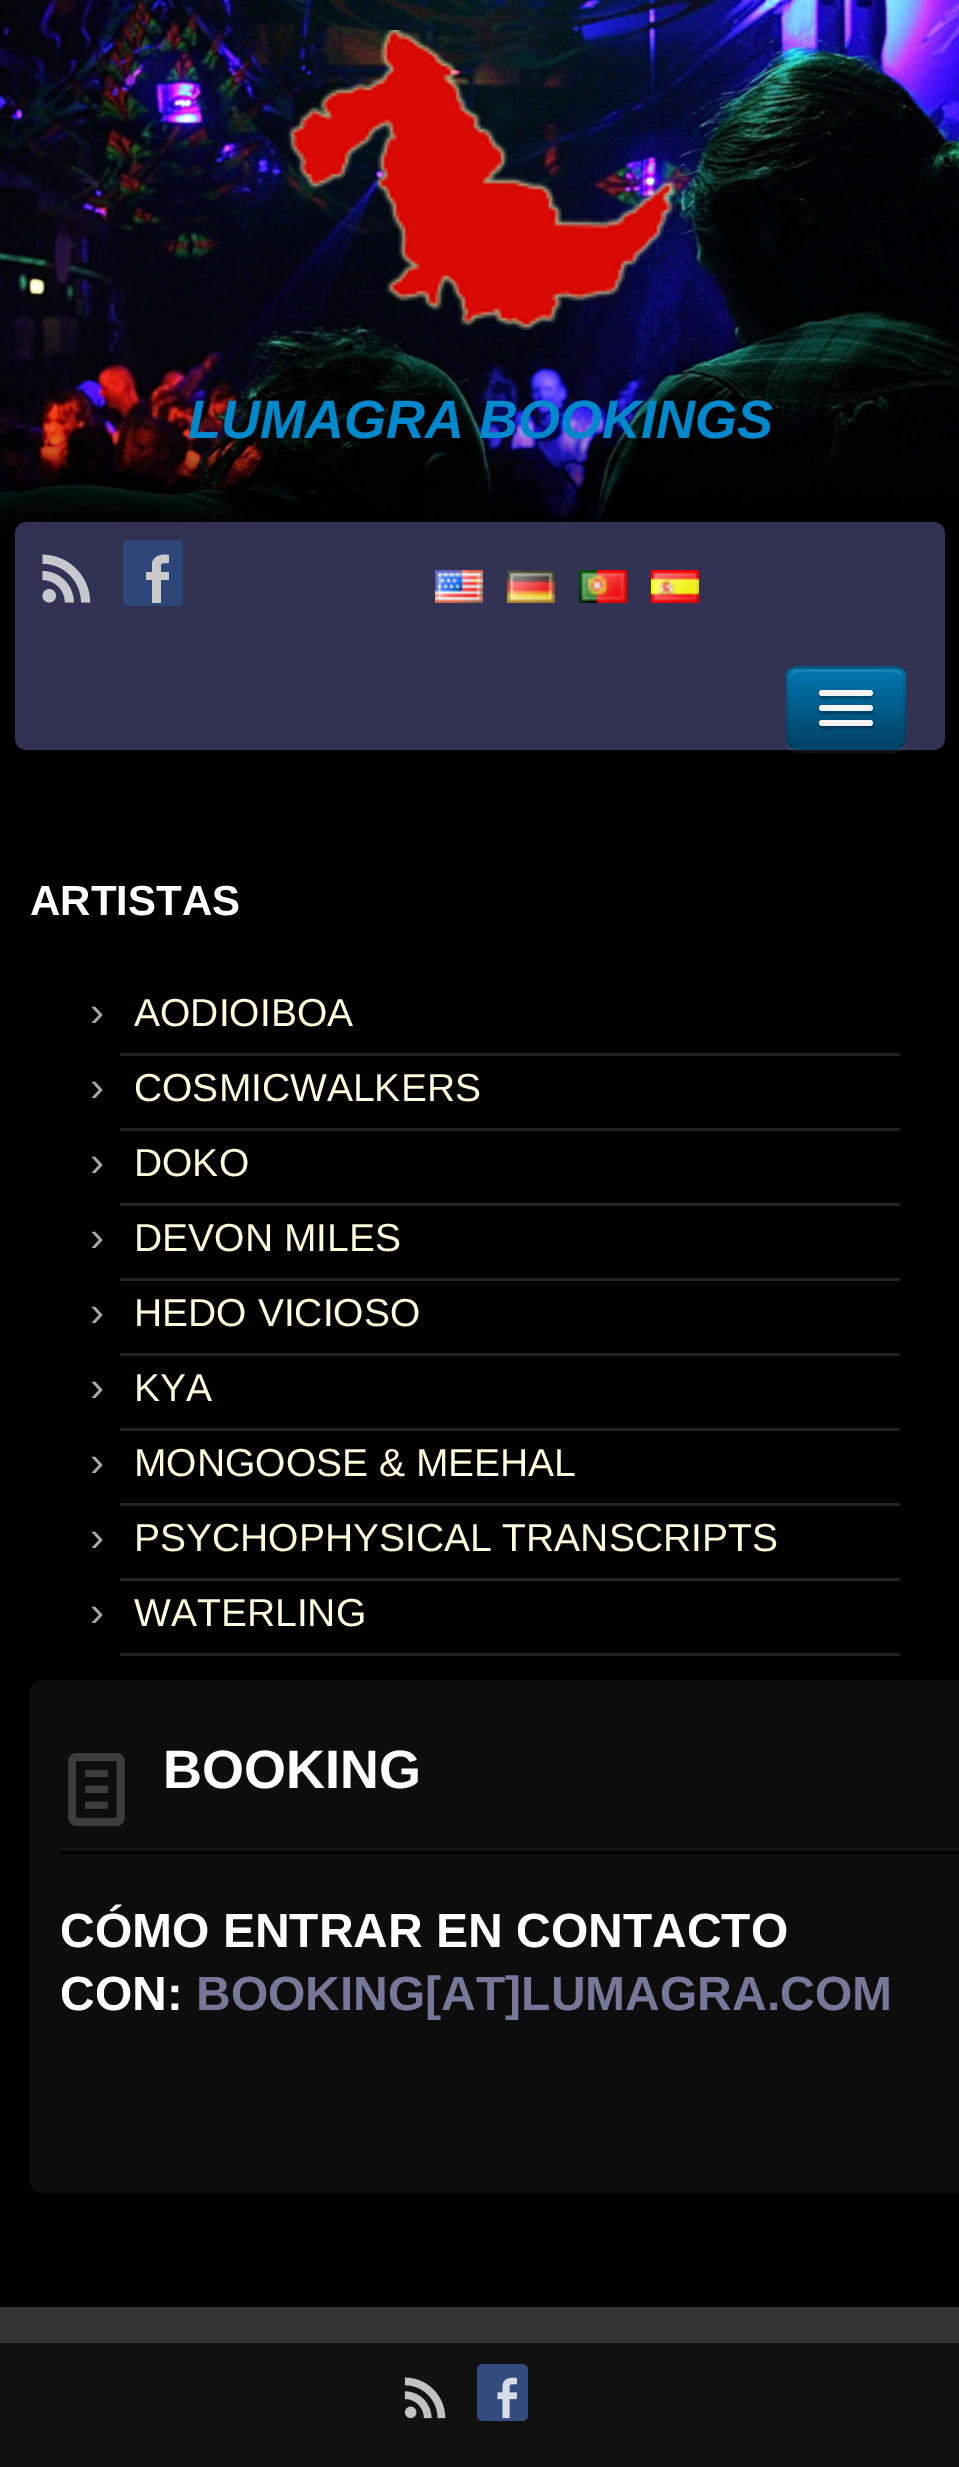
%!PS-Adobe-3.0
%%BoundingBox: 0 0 959 2467
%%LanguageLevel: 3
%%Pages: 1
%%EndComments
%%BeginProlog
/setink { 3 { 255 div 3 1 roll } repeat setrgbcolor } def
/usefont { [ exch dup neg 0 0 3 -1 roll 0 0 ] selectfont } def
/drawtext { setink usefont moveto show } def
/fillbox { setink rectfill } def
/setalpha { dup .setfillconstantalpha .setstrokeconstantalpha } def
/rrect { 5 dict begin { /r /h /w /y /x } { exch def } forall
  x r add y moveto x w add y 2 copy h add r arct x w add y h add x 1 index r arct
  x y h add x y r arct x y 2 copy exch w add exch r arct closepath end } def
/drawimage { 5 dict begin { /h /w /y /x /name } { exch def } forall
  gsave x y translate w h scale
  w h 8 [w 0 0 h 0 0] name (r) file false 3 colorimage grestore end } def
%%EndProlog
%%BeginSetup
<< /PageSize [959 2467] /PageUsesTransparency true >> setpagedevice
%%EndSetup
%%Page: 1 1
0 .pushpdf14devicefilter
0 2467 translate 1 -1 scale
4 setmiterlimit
0 0 959 2467 0 0 0 fillbox
(assets/img1.rgb) 0 0 959 537 drawimage
(assets/img2.rgb) 287 30 389 300 drawimage
(LUMAGRA BOOKINGS) 188 438 /LiberationSans-BoldItalic 54 0 136 204 drawtext
0.99 setalpha
51 51 85 setink
15 522 930 228 12 rrect fill
1 setalpha
(assets/img3.rgb) 42 554 49 49 drawimage
47 70 120 setink
123 540 60 66 6 rrect fill
202 202 202 setink
146 580 moveto 146 572 lineto 152 572 lineto 152 563 lineto 154 555 162 554 169 555 curveto 169 563 lineto 159 563 161 563 161 572 curveto 169 572 lineto 169 580 lineto 161 580 lineto 161 603 lineto 152 603 lineto 152 580 lineto closepath fill
(assets/img4.rgb) 435 570 48 33 drawimage
(assets/img5.rgb) 507 570 48 33 drawimage
(assets/img6.rgb) 579 570 48 33 drawimage
(assets/img7.rgb) 651 570 48 33 drawimage
0.07 setalpha
252 252 252 setink
786 738 moveto 786 756 800 753 814 753 curveto 878 753 lineto 892 753 906 756 906 738 curveto 906 745 901 750 894 750 curveto 798 750 lineto 791 750 786 745 786 738 curveto closepath fill
1 setalpha
0 98 147 setink
786 666 120 84 12 rrect fill
gsave
786 666 120 84 12 rrect clip newpath
gsave 786 669 moveto 906 669 lineto 906 747 lineto 786 747 lineto closepath clip newpath
<< /ShadingType 2 /ColorSpace /DeviceRGB /Coords [846 669 846 747] /Extend [true true] /Function << /FunctionType 2 /Domain [0 1] /C0 [0 0.463 0.694] /C1 [0 0.263 0.396] /N 1 >> >> shfill grestore
grestore
0.1 setalpha
252 252 252 setink
798 672 moveto 894 672 lineto 899 672 903 676 903 681 curveto 903 665 891 669 878 669 curveto 814 669 lineto 801 669 789 665 789 681 curveto 789 676 793 672 798 672 curveto closepath fill
0.25 setalpha
0 0 0 setink
3 setlinewidth
901.5 745.5 moveto 899.5 747.5 897 748.5 894 748.5 curveto 798 748.5 lineto 795 748.5 792.5 747.5 790.5 745.5 curveto stroke
0.1 setalpha
790.5 745.5 moveto 788.5 743.5 787.5 741 787.5 738 curveto 787.5 678 lineto 787.5 675 788.5 672.5 790.5 670.5 curveto 792.5 668.5 795 667.5 798 667.5 curveto 894 667.5 lineto 897 667.5 899.5 668.5 901.5 670.5 curveto 903.5 672.5 904.5 675 904.5 678 curveto 904.5 738 lineto 904.5 741 903.5 743.5 901.5 745.5 curveto stroke
0.25 setalpha
819 694 moveto 816 701 830 699 830 699 curveto 862 699 lineto 862 699 876 701 873 694 curveto 872 695 871 696 870 696 curveto 822 696 lineto 821 696 820 695 819 694 curveto closepath fill
1 setalpha
243 243 243 setink
819 690 54 6 3 rrect fill
0.25 setalpha
0 0 0 setink
819 710 moveto 816 716 830 714 830 714 curveto 862 714 lineto 862 714 876 716 873 710 curveto 872 710 871 711 870 711 curveto 822 711 lineto 821 711 820 710 819 710 curveto closepath fill
1 setalpha
243 243 243 setink
819 705 54 6 3 rrect fill
0.25 setalpha
0 0 0 setink
819 724 moveto 816 731 830 729 830 729 curveto 862 729 lineto 862 729 876 731 873 724 curveto 872 725 871 726 870 726 curveto 822 726 lineto 821 726 820 725 819 724 curveto closepath fill
1 setalpha
243 243 243 setink
819 720 54 6 3 rrect fill
(ARTISTAS) 30 915 /LiberationSans-Bold 42 255 255 255 drawtext
(›) 90 1026 /LiberationSans-Regular 42 170 170 170 drawtext
(AODIOIBOA) 134 1026 /LiberationSans-Regular 39 255 255 221 drawtext
120 1053 780 3 34 34 34 fillbox
(›) 90 1101 /LiberationSans-Regular 42 170 170 170 drawtext
(COSMICWALKERS) 134 1101 /LiberationSans-Regular 39 255 255 221 drawtext
120 1128 780 3 34 34 34 fillbox
(›) 90 1176 /LiberationSans-Regular 42 170 170 170 drawtext
(DOKO) 134 1176 /LiberationSans-Regular 39 255 255 221 drawtext
120 1203 780 3 34 34 34 fillbox
(›) 90 1251 /LiberationSans-Regular 42 170 170 170 drawtext
(DEVON MILES) 134 1251 /LiberationSans-Regular 39 255 255 221 drawtext
120 1278 780 3 34 34 34 fillbox
(›) 90 1326 /LiberationSans-Regular 42 170 170 170 drawtext
(HEDO VICIOSO) 134 1326 /LiberationSans-Regular 39 255 255 221 drawtext
120 1353 780 3 34 34 34 fillbox
(›) 90 1401 /LiberationSans-Regular 42 170 170 170 drawtext
(KYA) 134 1401 /LiberationSans-Regular 39 255 255 221 drawtext
120 1428 780 3 34 34 34 fillbox
(›) 90 1476 /LiberationSans-Regular 42 170 170 170 drawtext
(MONGOOSE & MEEHAL) 134 1476 /LiberationSans-Regular 39 255 255 221 drawtext
120 1503 780 3 34 34 34 fillbox
(›) 90 1551 /LiberationSans-Regular 42 170 170 170 drawtext
(PSYCHOPHYSICAL TRANSCRIPTS) 134 1551 /LiberationSans-Regular 39 255 255 221 drawtext
120 1578 780 3 34 34 34 fillbox
(›) 90 1626 /LiberationSans-Regular 42 170 170 170 drawtext
(WATERLING) 134 1626 /LiberationSans-Regular 39 255 255 221 drawtext
120 1653 780 3 34 34 34 fillbox
13 13 13 setink
30 1680 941 513 12 rrect fill
(assets/img8.rgb) 68 1753 57 73 drawimage
(BOOKING) 163 1788 /LiberationSans-Bold 54 255 255 255 drawtext
60 1848 899 3 17 17 17 fillbox
60 1851 899 3 0 0 0 fillbox
(CÓMO ENTRAR EN CONTACTO) 60 1947 /LiberationSans-Bold 48 255 255 255 drawtext
(CON:) 60 2010 /LiberationSans-Bold 48 255 255 255 drawtext
(BOOKING[AT]LUMAGRA.COM) 196 2010 /LiberationSans-Bold 48 119 119 153 drawtext
0 2307 959 36 51 51 51 fillbox
0 2343 959 124 17 17 17 fillbox
(assets/img9.rgb) 404 2377 42 42 drawimage
51 75 125 setink
477 2364 51 57 6 rrect fill
(assets/img10.rgb) 497 2377 21 42 drawimage
.poppdf14devicefilter showpage
%%EOF
